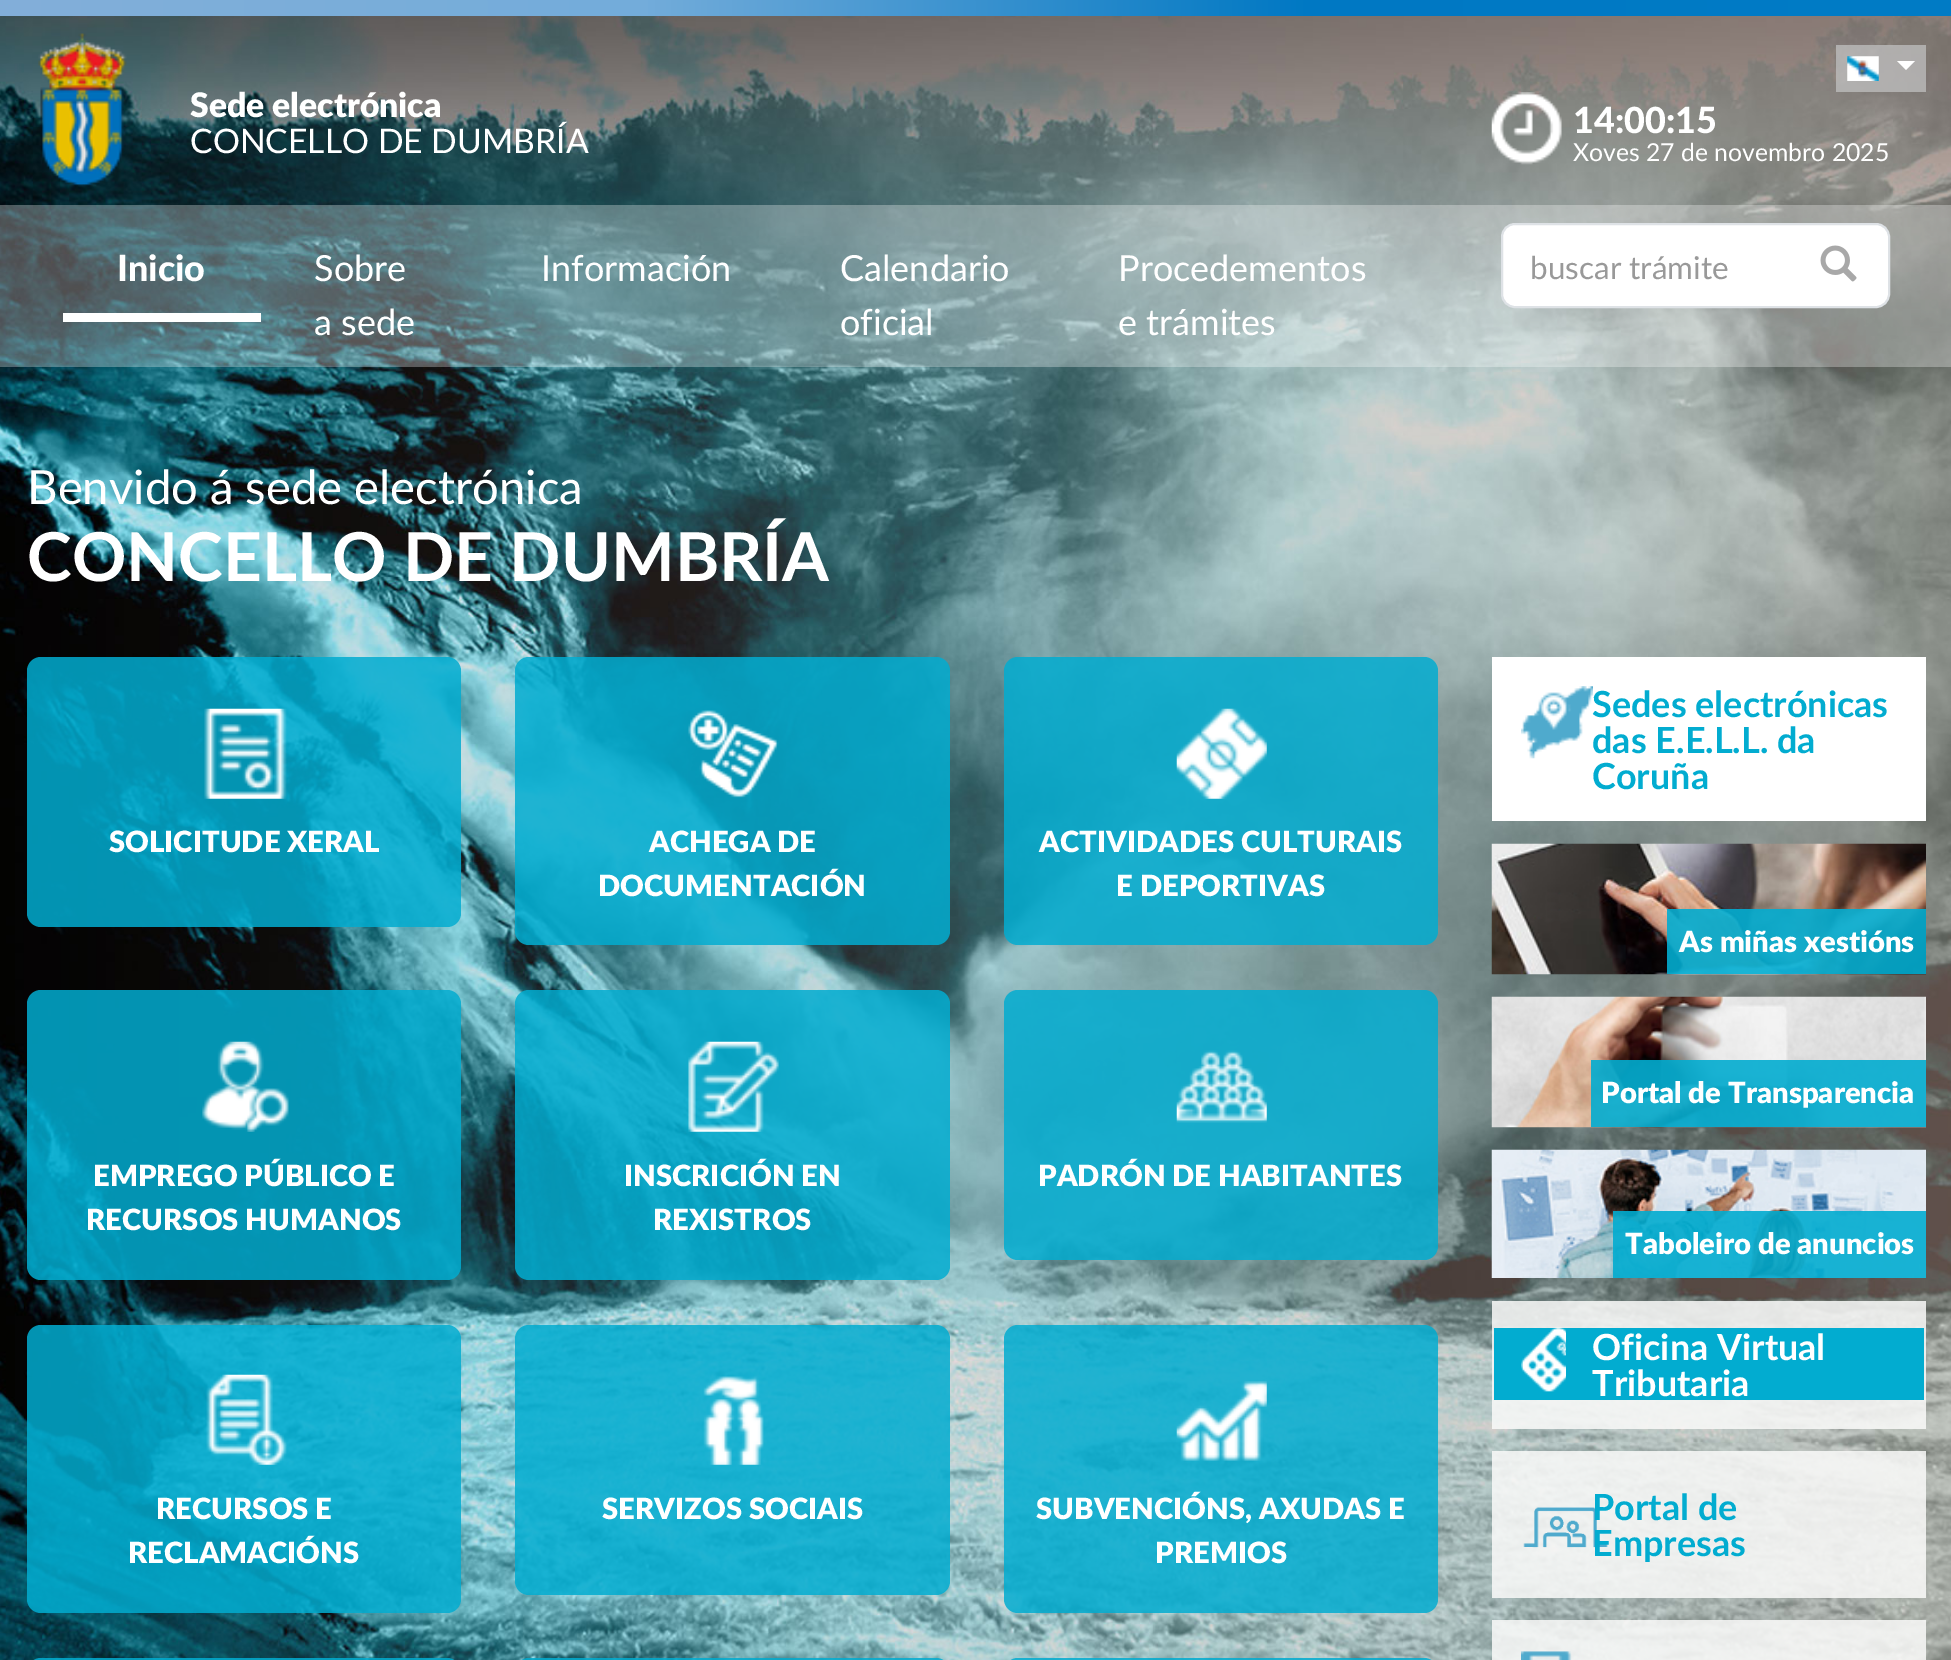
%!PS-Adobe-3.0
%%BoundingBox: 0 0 1951 1660
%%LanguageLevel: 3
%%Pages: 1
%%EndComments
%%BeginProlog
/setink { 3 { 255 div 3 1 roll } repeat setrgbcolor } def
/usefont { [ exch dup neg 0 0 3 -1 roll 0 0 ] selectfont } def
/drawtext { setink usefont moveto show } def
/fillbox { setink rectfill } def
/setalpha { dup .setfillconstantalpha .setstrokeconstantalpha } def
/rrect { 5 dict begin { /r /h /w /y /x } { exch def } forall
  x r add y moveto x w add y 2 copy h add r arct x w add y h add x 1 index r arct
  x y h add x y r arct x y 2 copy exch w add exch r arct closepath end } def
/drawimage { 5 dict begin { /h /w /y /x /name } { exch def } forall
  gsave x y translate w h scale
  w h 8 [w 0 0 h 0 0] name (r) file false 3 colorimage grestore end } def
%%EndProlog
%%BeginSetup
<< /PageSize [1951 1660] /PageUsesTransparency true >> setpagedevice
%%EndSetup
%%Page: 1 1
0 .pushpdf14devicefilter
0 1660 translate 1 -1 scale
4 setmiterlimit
0 0 1951 1660 255 255 255 fillbox
(assets/img1.rgb) 0 16 1951 1644 drawimage
gsave 0 0 moveto 1951 0 lineto 1951 16 lineto 0 16 lineto closepath clip newpath
<< /ShadingType 2 /ColorSpace /DeviceRGB /Coords [0 7.9 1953 7.9] /Extend [true true] /Function << /FunctionType 3 /Domain [0 1] /Functions [<< /FunctionType 2 /Domain [0 1] /C0 [0.514 0.686 0.851] /C1 [0.451 0.675 0.855] /N 1 >> << /FunctionType 2 /Domain [0 1] /C0 [0.451 0.675 0.855] /C1 [0 0.471 0.765] /N 1 >> << /FunctionType 2 /Domain [0 1] /C0 [0 0.471 0.765] /C1 [0 0.486 0.776] /N 1 >>] /Bounds [0.33 0.67] /Encode [0 1 0 1 0 1] >> >> shfill grestore
(assets/img2.rgb) 38 33 89 154 drawimage
(Sede electrónica) 190 117 /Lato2-Black 33.75 255 255 255 drawtext
(CONCELLO DE DUMBRÍA) 190 153 /Lato-Regular 33.75 255 255 255 drawtext
0.75 setalpha
1836 45 90 47 192 192 192 fillbox
1 setalpha
(assets/img3.rgb) 1847 56 32 25 drawimage
255 255 255 setink
1897 61 moveto 1915 61 lineto 1906 70 lineto closepath fill
(assets/img4.rgb) 1491 92 71 73 drawimage
(14:00:15) 1573 133 /Lato-Black 36 255 255 255 drawtext
(Xoves 27 de novembro 2025) 1573 161 /Lato-Regular 24.75 255 255 255 drawtext
0.3 setalpha
0 205 1951 162 255 255 255 fillbox
1 setalpha
63 313 198 9 255 255 255 fillbox
(Inicio) 117 281 /Lato-Black 36 255 255 255 drawtext
(Sobre) 314 281 /Lato-Regular 36 255 255 255 drawtext
(a sede) 314 335 /Lato-Regular 36 255 255 255 drawtext
(Información) 541 281 /Lato-Regular 36 255 255 255 drawtext
(Calendario) 840 281 /Lato-Regular 36 255 255 255 drawtext
(oficial) 840 335 /Lato-Regular 36 255 255 255 drawtext
(Procedementos) 1118 281 /Lato-Regular 36 255 255 255 drawtext
(e trámites) 1118 335 /Lato-Regular 36 255 255 255 drawtext
1503 225 385 81 11 rrect fill
222 226 230 setink
2 setlinewidth
1502 224 387 83 13 rrect stroke
(buscar trámite) 1530 279 /Lato-Regular 31.5 153 153 153 drawtext
(assets/img5.rgb) 1820 245 37 37 drawimage
(Benvido á sede electrónica) 27 504 /Lato-Regular 47.25 255 255 255 drawtext
(CONCELLO DE DUMBRÍA) 27 581 /Lato-Bold 67.5 255 255 255 drawtext
0.85 setalpha
2 172 208 setink
27 657 434 270 14 rrect fill
1 setalpha
(assets/img6.rgb) 204 708 83 91 drawimage
(SOLICITUDE XERAL) 109 852 /Lato2-Black 29.25 255 255 255 drawtext
0.85 setalpha
2 172 208 setink
515 657 435 288 14 rrect fill
1 setalpha
(assets/img7.rgb) 688 710 91 88 drawimage
(ACHEGA DE) 649 852 /Lato2-Black 29.25 255 255 255 drawtext
(DOCUMENTACIÓN) 598 896 /Lato2-Black 29.25 255 255 255 drawtext
0.85 setalpha
2 172 208 setink
1004 657 434 288 14 rrect fill
1 setalpha
(assets/img8.rgb) 1176 708 91 91 drawimage
(ACTIVIDADES CULTURAIS) 1039 852 /Lato2-Black 29.25 255 255 255 drawtext
(E DEPORTIVAS) 1116 896 /Lato2-Black 29.25 255 255 255 drawtext
0.85 setalpha
2 172 208 setink
27 990 434 290 14 rrect fill
1 setalpha
(assets/img9.rgb) 202 1041 87 91 drawimage
(EMPREGO PÚBLICO E) 93 1186 /Lato2-Black 29.25 255 255 255 drawtext
(RECURSOS HUMANOS) 86 1230 /Lato2-Black 29.25 255 255 255 drawtext
0.85 setalpha
2 172 208 setink
515 990 435 290 14 rrect fill
1 setalpha
(assets/img10.rgb) 688 1041 91 91 drawimage
(INSCRICIÓN EN) 624 1186 /Lato2-Black 29.25 255 255 255 drawtext
(REXISTROS) 653 1230 /Lato2-Black 29.25 255 255 255 drawtext
0.85 setalpha
2 172 208 setink
1004 990 434 270 14 rrect fill
1 setalpha
(assets/img11.rgb) 1176 1050 91 73 drawimage
(PADRÓN DE HABITANTES) 1038 1186 /Lato2-Black 29.25 255 255 255 drawtext
0.85 setalpha
2 172 208 setink
27 1325 434 288 14 rrect fill
1 setalpha
(assets/img12.rgb) 206 1374 81 91 drawimage
(RECURSOS E) 156 1519 /Lato2-Black 29.25 255 255 255 drawtext
(RECLAMACIÓNS) 128 1563 /Lato2-Black 29.25 255 255 255 drawtext
0.85 setalpha
2 172 208 setink
515 1325 435 270 14 rrect fill
1 setalpha
(assets/img13.rgb) 703 1376 61 89 drawimage
(SERVIZOS SOCIAIS) 602 1519 /Lato2-Black 29.25 255 255 255 drawtext
0.85 setalpha
2 172 208 setink
1004 1325 434 288 14 rrect fill
1 setalpha
(assets/img14.rgb) 1176 1381 91 80 drawimage
(SUBVENCIÓNS, AXUDAS E) 1036 1519 /Lato2-Black 29.25 255 255 255 drawtext
(PREMIOS) 1155 1563 /Lato2-Black 29.25 255 255 255 drawtext
0.85 setalpha
2 172 208 setink
27 1658 434 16 14 rrect fill
515 1658 435 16 14 rrect fill
1004 1658 434 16 14 rrect fill
1 setalpha
1492 657 434 164 255 255 255 fillbox
(assets/img15.rgb) 1521 686 72 73 drawimage
(Sedes electrónicas) 1592 717 /Lato-Bold 36 2 172 208 drawtext
(das E.E.L.L. da) 1592 753 /Lato-Bold 36 2 172 208 drawtext
(Coruña) 1592 789 /Lato-Bold 36 2 172 208 drawtext
(assets/img16.rgb) 1491 843 435 132 drawimage
0.9 setalpha
1667 909 259 65 2 172 208 fillbox
1 setalpha
(As miñas xestións) 1679 952 /Lato2-Black 29.25 255 255 255 drawtext
(assets/img17.rgb) 1491 996 435 132 drawimage
0.9 setalpha
1591 1060 335 67 2 172 208 fillbox
1 setalpha
(Portal de Transparencia) 1601 1103 /Lato2-Black 29.25 255 255 255 drawtext
(assets/img18.rgb) 1491 1149 435 129 drawimage
0.9 setalpha
1613 1211 313 67 2 172 208 fillbox
1 setalpha
(Taboleiro de anuncios) 1625 1254 /Lato2-Black 29.25 255 255 255 drawtext
0.85 setalpha
1492 1301 434 128 250 250 249 fillbox
1 setalpha
1494 1328 430 72 2 172 208 fillbox
(assets/img19.rgb) 1521 1327 45 65 drawimage
(Oficina Virtual) 1592 1360 /Lato-Bold 36 255 255 255 drawtext
(Tributaria) 1592 1396 /Lato-Bold 36 255 255 255 drawtext
0.85 setalpha
1492 1451 434 147 250 250 249 fillbox
1 setalpha
(assets/img20.rgb) 1523 1507 85 41 drawimage
(Portal de) 1592 1520 /Lato-Bold 36 2 172 208 drawtext
(Empresas) 1592 1556 /Lato-Bold 36 2 172 208 drawtext
0.85 setalpha
1492 1620 434 40 250 250 249 fillbox
1 setalpha
(assets/img21.rgb) 1521 1651 51 9 drawimage
.poppdf14devicefilter showpage
%%EOF
